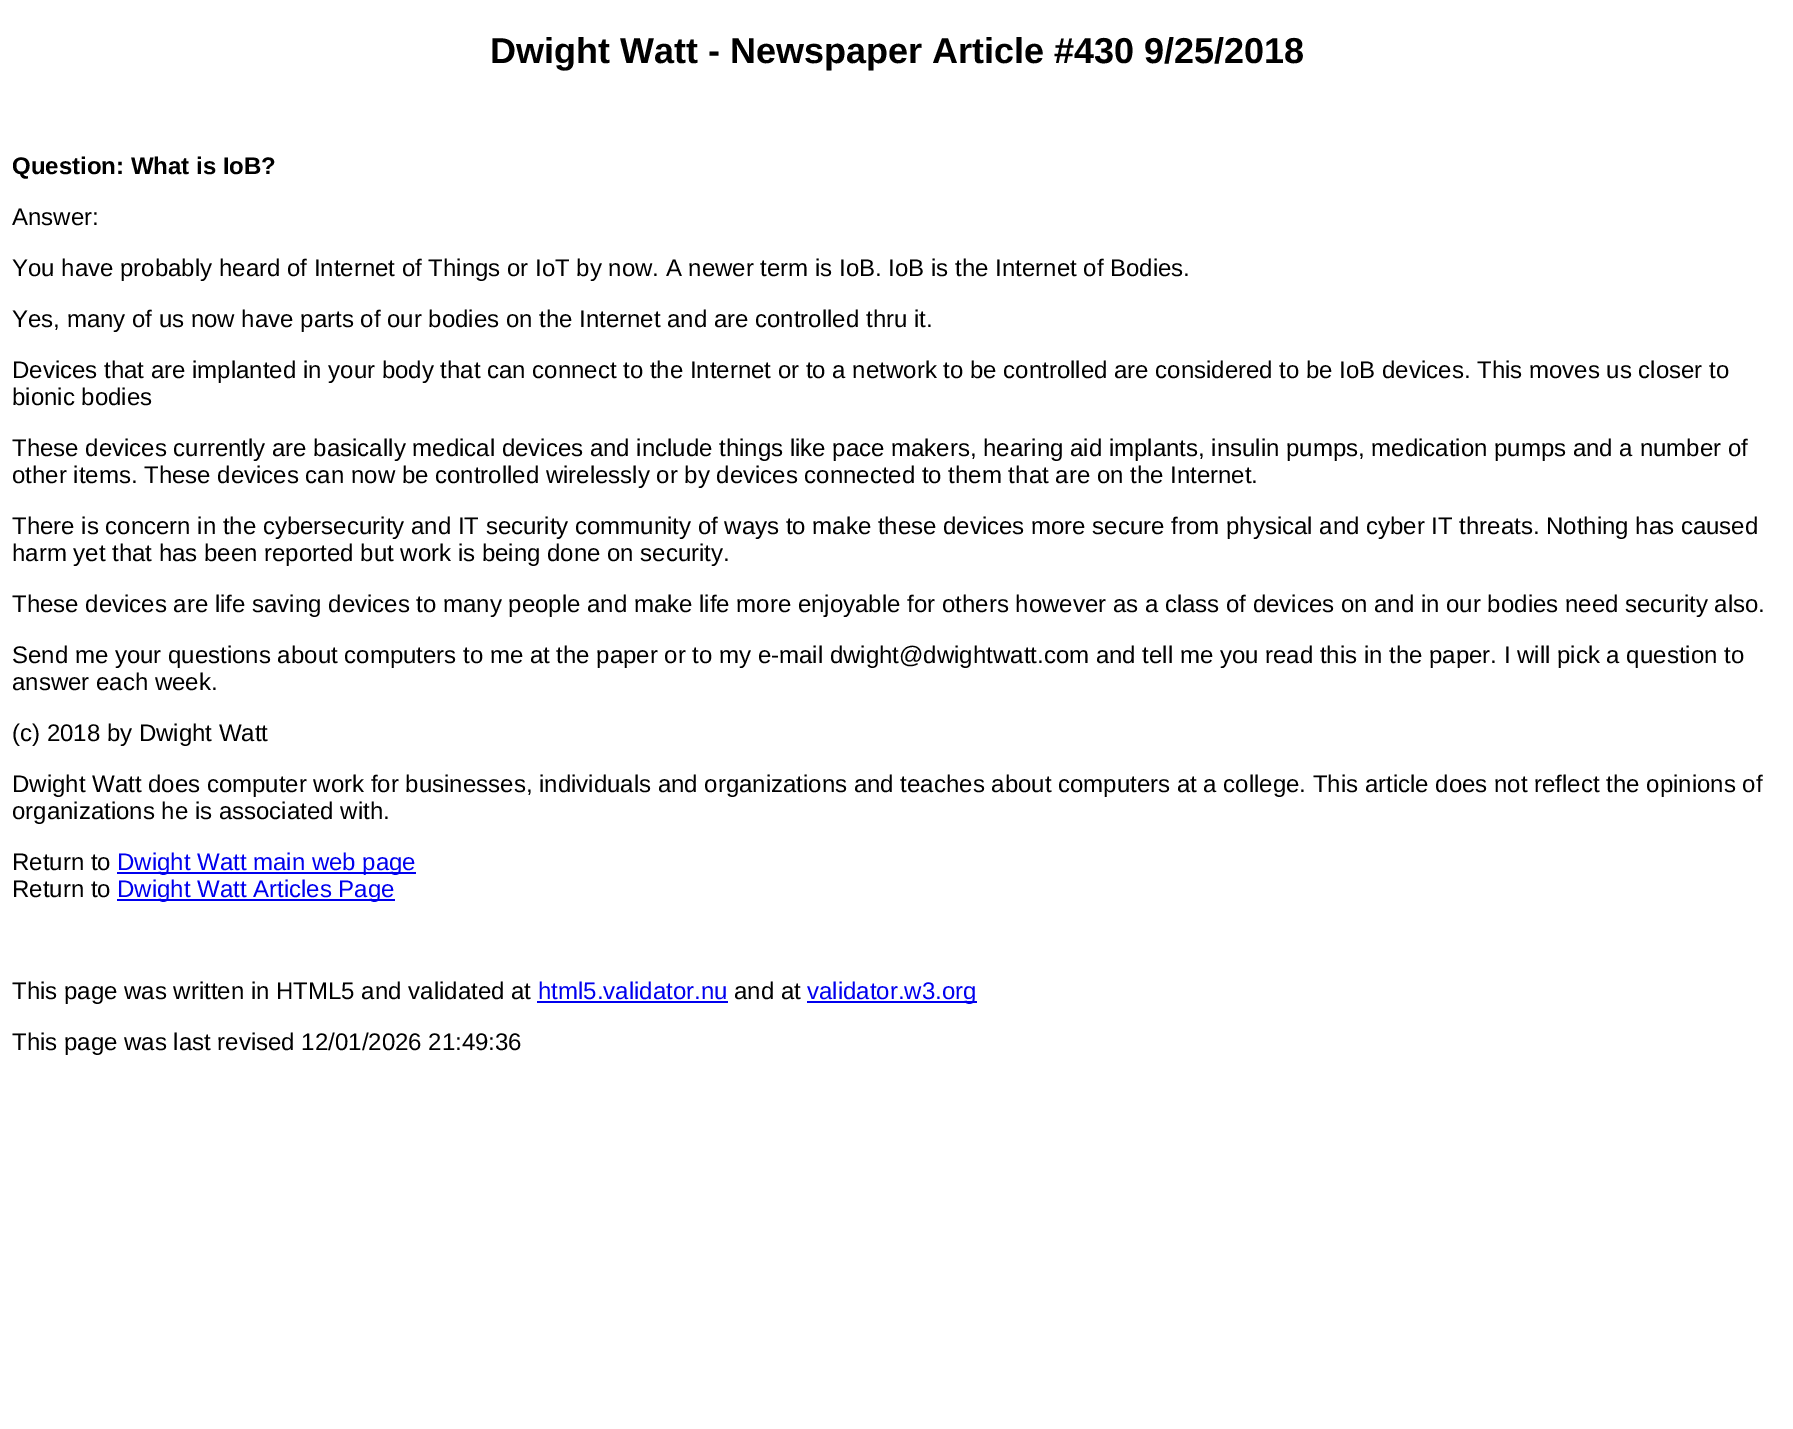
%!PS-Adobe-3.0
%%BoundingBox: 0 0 1793 1429
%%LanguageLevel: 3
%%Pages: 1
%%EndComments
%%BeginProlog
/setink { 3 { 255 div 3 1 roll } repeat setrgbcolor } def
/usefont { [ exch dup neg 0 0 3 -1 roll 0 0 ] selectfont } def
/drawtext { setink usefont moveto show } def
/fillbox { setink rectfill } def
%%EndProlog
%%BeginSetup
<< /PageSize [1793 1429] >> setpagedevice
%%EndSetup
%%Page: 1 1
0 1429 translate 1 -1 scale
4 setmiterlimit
0 0 1793 1429 255 255 255 fillbox
(Dwight Watt - Newspaper Article #430 9/25/2018) 490 63 /LiberationSans-Bold 36 0 0 0 drawtext
(Question: What is IoB?) 12 174 /LiberationSans-Bold 24 0 0 0 drawtext
(Answer:) 12 225 /LiberationSans-Regular 24 0 0 0 drawtext
(You have probably heard of Internet of Things or IoT by now. A newer term is IoB. IoB is the Internet of Bodies.) 12 276 /LiberationSans-Regular 24 0 0 0 drawtext
(Yes, many of us now have parts of our bodies on the Internet and are controlled thru it.) 12 327 /LiberationSans-Regular 24 0 0 0 drawtext
(Devices that are implanted in your body that can connect to the Internet or to a network to be controlled are considered to be IoB devices. This moves us closer to) 12 378 /LiberationSans-Regular 24 0 0 0 drawtext
(bionic bodies) 12 405 /LiberationSans-Regular 24 0 0 0 drawtext
(These devices currently are basically medical devices and include things like pace makers, hearing aid implants, insulin pumps, medication pumps and a number of) 12 456 /LiberationSans-Regular 24 0 0 0 drawtext
(other items. These devices can now be controlled wirelessly or by devices connected to them that are on the Internet.) 12 483 /LiberationSans-Regular 24 0 0 0 drawtext
(There is concern in the cybersecurity and IT security community of ways to make these devices more secure from physical and cyber IT threats. Nothing has caused) 12 534 /LiberationSans-Regular 24 0 0 0 drawtext
(harm yet that has been reported but work is being done on security.) 12 561 /LiberationSans-Regular 24 0 0 0 drawtext
(These devices are life saving devices to many people and make life more enjoyable for others however as a class of devices on and in our bodies need security also.) 12 612 /LiberationSans-Regular 24 0 0 0 drawtext
(Send me your questions about computers to me at the paper or to my e-mail dwight@dwightwatt.com and tell me you read this in the paper. I will pick a question to) 12 663 /LiberationSans-Regular 24 0 0 0 drawtext
(answer each week.) 12 690 /LiberationSans-Regular 24 0 0 0 drawtext
(\(c\) 2018 by Dwight Watt) 12 741 /LiberationSans-Regular 24 0 0 0 drawtext
(Dwight Watt does computer work for businesses, individuals and organizations and teaches about computers at a college. This article does not reflect the opinions of) 12 792 /LiberationSans-Regular 24 0 0 0 drawtext
(organizations he is associated with.) 12 819 /LiberationSans-Regular 24 0 0 0 drawtext
(Return to) 12 870 /LiberationSans-Regular 24 0 0 0 drawtext
117 872 299 2 0 0 238 fillbox
(Dwight Watt main web page) 117 870 /LiberationSans-Regular 24 0 0 238 drawtext
(Return to) 12 897 /LiberationSans-Regular 24 0 0 0 drawtext
117 899 278 2 0 0 238 fillbox
(Dwight Watt Articles Page) 117 897 /LiberationSans-Regular 24 0 0 238 drawtext
(This page was written in HTML5 and validated at) 12 999 /LiberationSans-Regular 24 0 0 0 drawtext
(html5.validator.nu) 538 999 /LiberationSans-Regular 24 0 0 238 drawtext
537 1001 191 2 0 0 238 fillbox
(and at) 734 999 /LiberationSans-Regular 24 0 0 0 drawtext
807 1001 170 2 0 0 238 fillbox
(validator.w3.org) 807 999 /LiberationSans-Regular 24 0 0 238 drawtext
(This page was last revised 12/01/2026 21:49:36) 12 1050 /LiberationSans-Regular 24 0 0 0 drawtext
showpage
%%EOF
